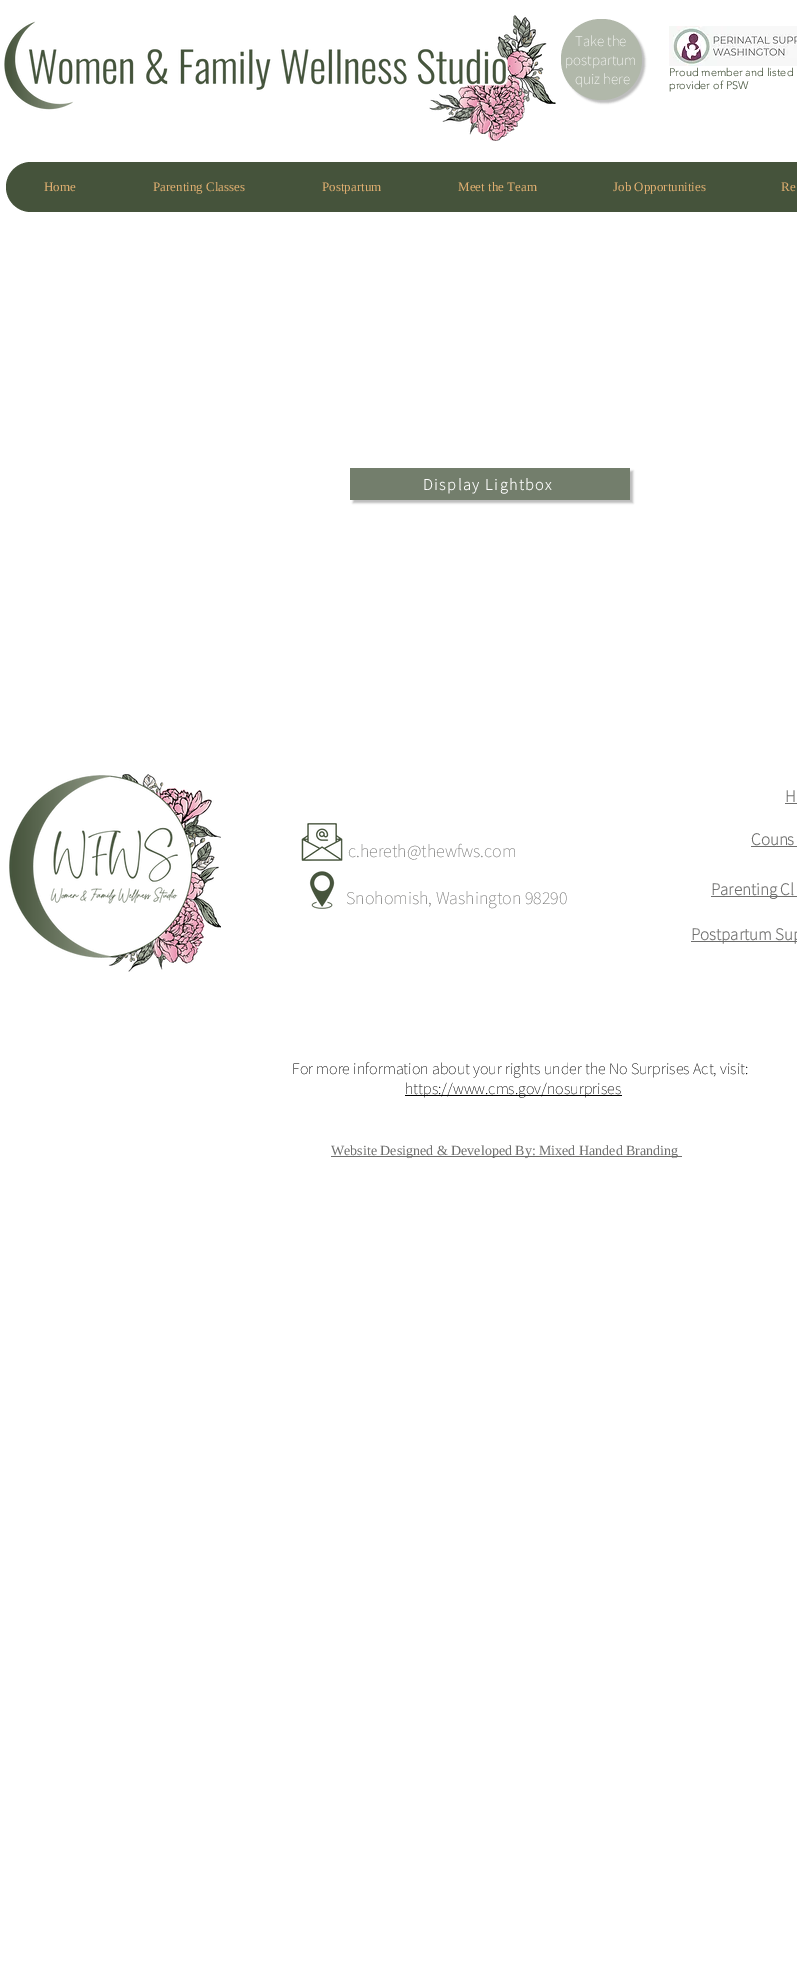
%!PS-Adobe-3.0
%%BoundingBox: 0 0 797 1978
%%LanguageLevel: 3
%%Pages: 1
%%EndComments
%%BeginProlog
/setink { 3 { 255 div 3 1 roll } repeat setrgbcolor } def
/usefont { [ exch dup neg 0 0 3 -1 roll 0 0 ] selectfont } def
/drawtext { setink usefont moveto show } def
/fillbox { setink rectfill } def
/setalpha { dup .setfillconstantalpha .setstrokeconstantalpha } def
/rrect { 5 dict begin { /r /h /w /y /x } { exch def } forall
  x r add y moveto x w add y 2 copy h add r arct x w add y h add x 1 index r arct
  x y h add x y r arct x y 2 copy exch w add exch r arct closepath end } def
/softshadow { 12 dict begin { /a /b /q /h /w /y /x } { exch def } forall gsave /was 0 def
  9 -2 -9 { dup b mul 4 div /e exch def 1 sub .425 mul 2.718 exch exp 1 add a .99 .min exch div /now exch def
    1 1 now sub 1 was sub div sub setalpha /was now def
    w h .min e 2 mul add 0 gt { x e sub y e sub w e 2 mul add h e 2 mul add
      q e add b .6 mul add w h .min 2 div e add .min 0 .max rrect fill } if } for grestore end } def
/drawimage { 5 dict begin { /h /w /y /x /name } { exch def } forall
  gsave x y translate w h scale
  w h 8 [w 0 0 h 0 0] name (r) file false 3 colorimage grestore end } def
%%EndProlog
%%BeginSetup
<< /PageSize [797 1978] /PageUsesTransparency true >> setpagedevice
%%EndSetup
%%Page: 1 1
0 .pushpdf14devicefilter
0 1978 translate 1 -1 scale
4 setmiterlimit
0 0 797 1978 255 255 255 fillbox
(assets/img1.rgb) 4 15 552 126 drawimage
0 0 0 setink
564 22 81 81 40 1 0.26 softshadow
177 184 170 setink
561 19 81 81 40 rrect fill
(Take the) 575 46 /SourceSansPro-ExtraLight 15 255 255 255 drawtext
(postpartum) 565 65 /SourceSansPro-ExtraLight 15 255 255 255 drawtext
(quiz here) 575 84 /SourceSansPro-ExtraLight 15 255 255 255 drawtext
(assets/img2.rgb) 669 26 128 40 drawimage
(Proud member and listed) 669 76 /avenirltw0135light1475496-Light 11 69 83 59 drawtext
(provider of PSW) 669 89 /avenirltw0135light1475496-Light 11 69 83 59 drawtext
6 162 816 50 25 rrect fill
(Home) 44 191 /LiberationSerif-Regular 13 223 174 112 drawtext
(Parenting Classes) 153 191 /LiberationSerif-Regular 13 223 174 112 drawtext
(Postpartum) 322 191 /LiberationSerif-Regular 13 223 174 112 drawtext
(Meet the Team) 458 191 /LiberationSerif-Regular 13 223 174 112 drawtext
(Job Opportunities) 613 191 /LiberationSerif-Regular 13 223 174 112 drawtext
(Re) 781 191 /LiberationSerif-Regular 13 223 174 112 drawtext
0 0 0 setink
353 471 280 32 0 1 0.26 softshadow
350 468 280 32 115 126 108 fillbox
/SourceSansPro-Bold 16 usefont
255 255 255 setink
423 490 moveto 1.6 0 (Display Lightbox) ashow
(assets/img3.rgb) 9 774 212 198 drawimage
(assets/img4.rgb) 301 823 42 38 drawimage
(c.hereth@thewfws.com) 348 857 /SourceSansPro-ExtraLight 18 110 110 109 drawtext
(H) 785 802 /SourceSansPro-Bold 17 110 110 109 drawtext
785 803 12 1 110 110 109 fillbox
(Couns) 751 845 /SourceSansPro-Bold 17 110 110 109 drawtext
751 846 46 1 110 110 109 fillbox
711 896 86 1 110 110 109 fillbox
(Parenting Cl) 711 895 /SourceSansPro-Bold 17 110 110 109 drawtext
691 941 106 1 110 110 109 fillbox
(Postpartum Sup) 691 940 /SourceSansPro-Bold 17 110 110 109 drawtext
(assets/img5.rgb) 309 871 26 38 drawimage
(Snohomish, Washington 98290) 346 904 /SourceSansPro-ExtraLight 18 110 110 109 drawtext
(For more information about your rights under the No Surprises Act, visit:) 292 1074 /SourceSansPro-ExtraLight 16 0 0 0 drawtext
405 1095 217 1 0 0 0 fillbox
(https://www.cms.gov/nosurprises) 405 1094 /SourceSansPro-ExtraLight 16 0 0 0 drawtext
331 1156 351 1 110 110 109 fillbox
(Website Designed & Developed By: Mixed Handed Branding) 331 1155 /LiberationSerif-Regular 14 110 110 109 drawtext
.poppdf14devicefilter showpage
%%EOF
